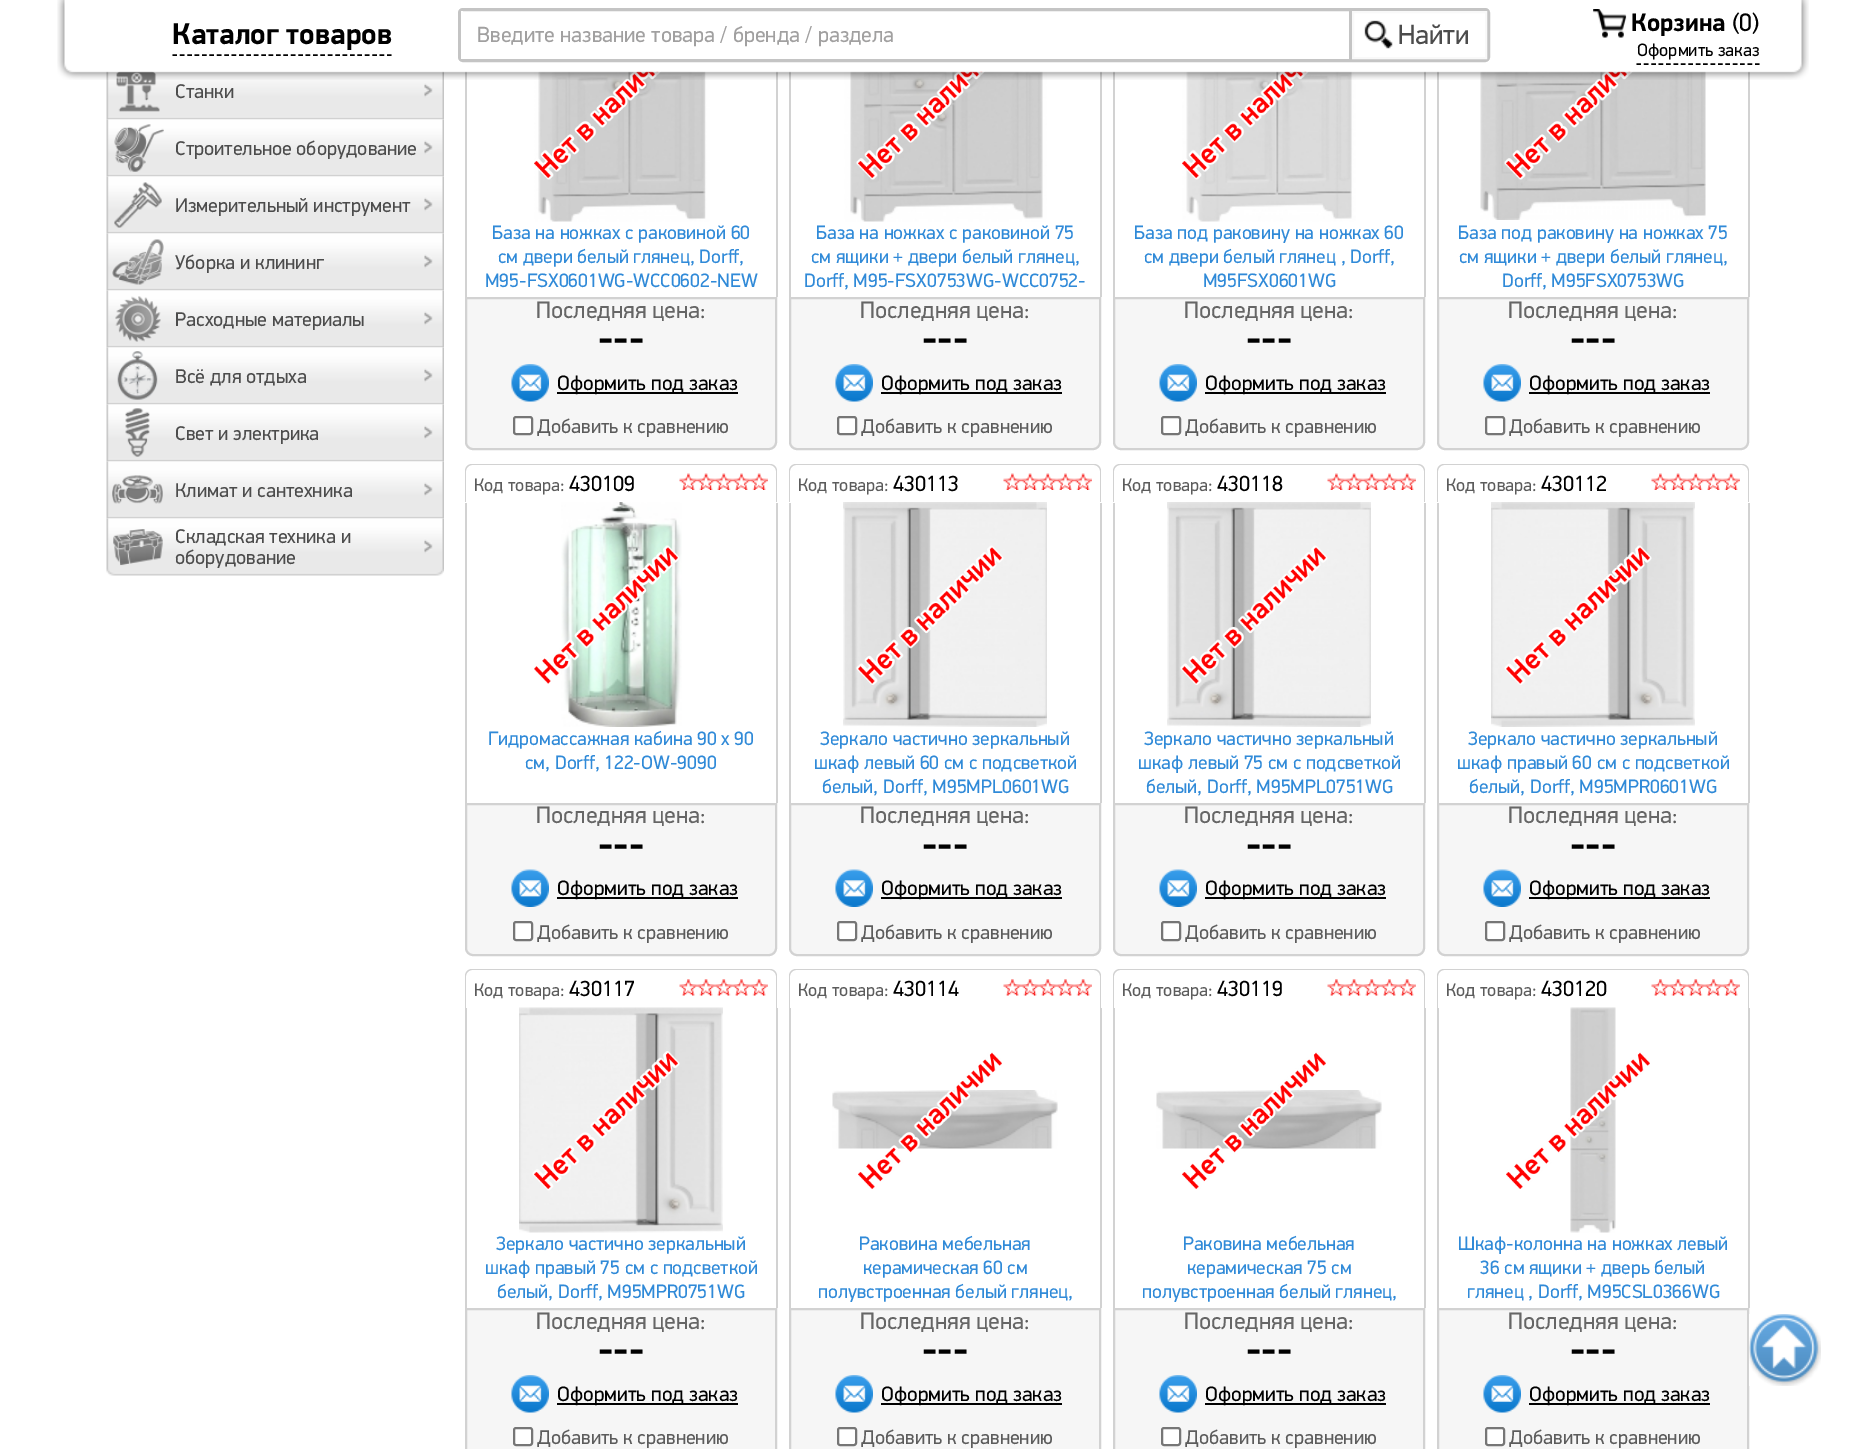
%!PS-Adobe-3.0
%%BoundingBox: 0 0 1865 1449
%%LanguageLevel: 3
%%Pages: 1
%%EndComments
%%BeginProlog
/setink { 3 { 255 div 3 1 roll } repeat setrgbcolor } def
/usefont { [ exch dup neg 0 0 3 -1 roll 0 0 ] selectfont } def
/drawtext { setink usefont moveto show } def
/fillbox { setink rectfill } def
/rrect { 5 dict begin { /r /h /w /y /x } { exch def } forall
  x r add y moveto x w add y 2 copy h add r arct x w add y h add x 1 index r arct
  x y h add x y r arct x y 2 copy exch w add exch r arct closepath end } def
/drawimage { 5 dict begin { /h /w /y /x /name } { exch def } forall
  gsave x y translate w h scale
  w h 8 [w 0 0 h 0 0] name (r) file false 3 colorimage grestore end } def
%%EndProlog
%%BeginSetup
<< /PageSize [1865 1449] >> setpagedevice
%%EndSetup
%%Page: 1 1
0 1449 translate 1 -1 scale
4 setmiterlimit
0 0 1865 1449 255 255 255 fillbox
(assets/img4.rgb) 106 71 338 49 drawimage
(assets/img5.rgb) 116 71 44 41 drawimage
(assets/img20.rgb) 534 71 176 151 drawimage
(assets/img16.rgb) 534 71 127 109 drawimage
(assets/img22.rgb) 844 71 203 151 drawimage
(assets/img17.rgb) 856 71 129 109 drawimage
(assets/img23.rgb) 1182 71 174 151 drawimage
(assets/img18.rgb) 1182 71 127 109 drawimage
(assets/img24.rgb) 1480 71 226 149 drawimage
(assets/img19.rgb) 1504 71 129 109 drawimage
776 71 2 226 210 210 210 fillbox
465 71 2 226 210 210 210 fillbox
1100 71 2 226 210 210 210 fillbox
789 71 2 226 210 210 210 fillbox
1424 71 2 226 210 210 210 fillbox
1113 71 2 226 210 210 210 fillbox
1748 71 2 226 210 210 210 fillbox
1437 71 2 226 210 210 210 fillbox
(assets/img1.rgb) 57 0 1752 80 drawimage
(Каталог товаров) 172 44 /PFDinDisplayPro-Bold 30 0 0 0 drawtext
1.5 setlinewidth
[4.5 2.9] 0 setdash
172.5 55 moveto 391.5 55 lineto stroke
196 196 196 setink
3 setlinewidth
[] 0 setdash
459.5 9.5 1029 51 3.5 rrect stroke
1349 11 3 48 196 196 196 fillbox
461 11 2 48 255 255 255 fillbox
(Введите название товара / бренда / раздела) 477 42 /PFDinDisplayPro-Regular 22 161 160 160 drawtext
(assets/img2.rgb) 1364 20 29 29 drawimage
249 249 249 setink
2 setlinewidth
1353 12 133 46 rectstroke
(Найти) 1398 44 /PFDinDisplayPro-Regular 28 76 76 76 drawtext
(assets/img3.rgb) 1593 9 34 29 drawimage
(Корзина) 1631 31 /PFDinDisplayPro-Bold 25.5 0 0 0 drawtext
(\(0\)) 1732 31 /PFDinDisplayPro-Regular 25.5 0 0 0 drawtext
(Оформить заказ) 1637 56 /PFDinDisplayPro-Regular 18 0 0 0 drawtext
1.5 setlinewidth
[4.5 2.91] 0 setdash
1636.5 64 moveto 1759.5 64 lineto stroke
(Станки) 175 98 /PFDinDisplayPro-Regular 20 76 76 76 drawtext
(assets/img6.rgb) 106 119 338 58 drawimage
(assets/img7.rgb) 114 124 50 48 drawimage
(Строительное оборудование) 175 155 /PFDinDisplayPro-Regular 20 76 76 76 drawtext
(assets/img6.rgb) 106 176 338 58 drawimage
(assets/img8.rgb) 114 182 48 46 drawimage
(Измерительный инструмент) 175 212 /PFDinDisplayPro-Regular 20 76 76 76 drawtext
(assets/img6.rgb) 106 233 338 58 drawimage
(assets/img9.rgb) 112 239 52 46 drawimage
(Уборка и клининг) 175 269 /PFDinDisplayPro-Regular 20 76 76 76 drawtext
(assets/img6.rgb) 106 290 338 58 drawimage
(assets/img10.rgb) 115 296 46 46 drawimage
(Расходные материалы) 175 326 /PFDinDisplayPro-Regular 20 76 76 76 drawtext
(assets/img6.rgb) 106 347 338 58 drawimage
(assets/img11.rgb) 117 351 41 49 drawimage
(Всё для отдыха) 175 383 /PFDinDisplayPro-Regular 20 76 76 76 drawtext
(assets/img6.rgb) 106 404 338 58 drawimage
(assets/img12.rgb) 125 408 25 49 drawimage
(Свет и электрика) 175 440 /PFDinDisplayPro-Regular 20 76 76 76 drawtext
(assets/img6.rgb) 106 461 338 58 drawimage
(assets/img13.rgb) 112 475 51 29 drawimage
(Климат и сантехника) 175 497 /PFDinDisplayPro-Regular 20 76 76 76 drawtext
(assets/img14.rgb) 106 518 338 58 drawimage
(assets/img15.rgb) 113 529 50 37 drawimage
(Складская техника и) 175 543 /PFDinDisplayPro-Regular 20 76 76 76 drawtext
(оборудование) 175 564 /PFDinDisplayPro-Regular 20 76 76 76 drawtext
(База на ножках с раковиной 60) 492 239 /PFDinDisplayPro-Regular 19.5 48 138 216 drawtext
(см двери белый глянец, Dorff,) 498 263 /PFDinDisplayPro-Regular 19.5 48 138 216 drawtext
(M95-FSX0601WG-WCC0602-NEW) 485 287 /PFDinDisplayPro-Regular 19.5 48 138 216 drawtext
246 246 246 setink
466 298 moveto 776 298 lineto 776 442 lineto 776 446 773 449 769 449 curveto 473 449 lineto 469 449 466 446 466 442 curveto closepath gsave fill grestore
210 210 210 setink
2 setlinewidth
[] 0 setdash
stroke
(Последняя цена) 536 318 /PFDinDisplayPro-Regular 24 102 102 102 drawtext
(:) 700 318 /PFDinDisplayPro-Regular 22 92 92 92 drawtext
(---) 598 350 /PFDinDisplayPro-Bold 36 0 0 0 drawtext
(assets/img21.rgb) 511 364 38 38 drawimage
557 392 181 2 0 0 0 fillbox
(Оформить под заказ) 557 390 /PFDinDisplayPro-Regular 21 0 0 0 drawtext
255 255 255 setink
514 417 18 17 2 rrect gsave fill grestore
118 118 118 setink
stroke
(Добавить к сравнению) 537 433 /PFDinDisplayPro-Regular 20 92 92 92 drawtext
(База на ножках с раковиной 75) 816 239 /PFDinDisplayPro-Regular 19.5 48 138 216 drawtext
(см ящики + двери белый глянец,) 811 263 /PFDinDisplayPro-Regular 19.5 48 138 216 drawtext
(Dorff, M95-FSX0753WG-WCC0752-) 804 287 /PFDinDisplayPro-Regular 19.5 48 138 216 drawtext
246 246 246 setink
790 298 moveto 1100 298 lineto 1100 442 lineto 1100 446 1097 449 1093 449 curveto 797 449 lineto 793 449 790 446 790 442 curveto closepath gsave fill grestore
210 210 210 setink
stroke
(Последняя цена) 860 318 /PFDinDisplayPro-Regular 24 102 102 102 drawtext
(:) 1024 318 /PFDinDisplayPro-Regular 22 92 92 92 drawtext
(---) 922 350 /PFDinDisplayPro-Bold 36 0 0 0 drawtext
(assets/img21.rgb) 835 364 38 38 drawimage
881 392 181 2 0 0 0 fillbox
(Оформить под заказ) 881 390 /PFDinDisplayPro-Regular 21 0 0 0 drawtext
255 255 255 setink
838 417 18 17 2 rrect gsave fill grestore
118 118 118 setink
stroke
(Добавить к сравнению) 861 433 /PFDinDisplayPro-Regular 20 92 92 92 drawtext
(База под раковину на ножках 60) 1134 239 /PFDinDisplayPro-Regular 19.5 48 138 216 drawtext
(см двери белый глянец , Dorff,) 1144 263 /PFDinDisplayPro-Regular 19.5 48 138 216 drawtext
(M95FSX0601WG) 1203 287 /PFDinDisplayPro-Regular 19.5 48 138 216 drawtext
246 246 246 setink
1114 298 moveto 1424 298 lineto 1424 442 lineto 1424 446 1421 449 1417 449 curveto 1121 449 lineto 1117 449 1114 446 1114 442 curveto closepath gsave fill grestore
210 210 210 setink
stroke
(Последняя цена) 1184 318 /PFDinDisplayPro-Regular 24 102 102 102 drawtext
(:) 1348 318 /PFDinDisplayPro-Regular 22 92 92 92 drawtext
(---) 1246 350 /PFDinDisplayPro-Bold 36 0 0 0 drawtext
(assets/img21.rgb) 1159 364 38 38 drawimage
1205 392 181 2 0 0 0 fillbox
(Оформить под заказ) 1205 390 /PFDinDisplayPro-Regular 21 0 0 0 drawtext
255 255 255 setink
1162 417 18 17 2 rrect gsave fill grestore
118 118 118 setink
stroke
(Добавить к сравнению) 1185 433 /PFDinDisplayPro-Regular 20 92 92 92 drawtext
(База под раковину на ножках 75) 1458 239 /PFDinDisplayPro-Regular 19.5 48 138 216 drawtext
(см ящики + двери белый глянец,) 1459 263 /PFDinDisplayPro-Regular 19.5 48 138 216 drawtext
(Dorff, M95FSX0753WG) 1502 287 /PFDinDisplayPro-Regular 19.5 48 138 216 drawtext
246 246 246 setink
1438 298 moveto 1748 298 lineto 1748 442 lineto 1748 446 1745 449 1741 449 curveto 1445 449 lineto 1441 449 1438 446 1438 442 curveto closepath gsave fill grestore
210 210 210 setink
stroke
(Последняя цена) 1508 318 /PFDinDisplayPro-Regular 24 102 102 102 drawtext
(:) 1672 318 /PFDinDisplayPro-Regular 22 92 92 92 drawtext
(---) 1570 350 /PFDinDisplayPro-Bold 36 0 0 0 drawtext
(assets/img21.rgb) 1483 364 38 38 drawimage
1529 392 181 2 0 0 0 fillbox
(Оформить под заказ) 1529 390 /PFDinDisplayPro-Regular 21 0 0 0 drawtext
255 255 255 setink
1486 417 18 17 2 rrect gsave fill grestore
118 118 118 setink
stroke
(Добавить к сравнению) 1509 433 /PFDinDisplayPro-Regular 20 92 92 92 drawtext
210 210 210 setink
472 464 moveto 770 464 lineto 774 464 777 467 777 471 curveto 777 502 lineto 465 502 lineto 465 471 lineto 465 467 468 464 472 464 curveto closepath 472 465 moveto 770 465 lineto 773 465 776 468 776 471 curveto 776 502 lineto 466 502 lineto 466 471 lineto 466 468 469 465 472 465 curveto closepath eofill
(Код товара:) 474 491 /PFDinDisplayPro-Regular 18 92 92 92 drawtext
(430109) 569 491 /PFDinDisplayPro-Regular 22 0 0 0 drawtext
(assets/img25.rgb) 679 473 89 17 drawimage
776 503 2 300 210 210 210 fillbox
465 503 2 300 210 210 210 fillbox
(assets/img26.rgb) 561 502 121 225 drawimage
(Гидромассажная кабина 90 х 90) 488 745 /PFDinDisplayPro-Regular 19.5 48 138 216 drawtext
(см, Dorff, 122-OW-9090) 525 769 /PFDinDisplayPro-Regular 19.5 48 138 216 drawtext
246 246 246 setink
466 804 moveto 776 804 lineto 776 948 lineto 776 952 773 955 769 955 curveto 473 955 lineto 469 955 466 952 466 948 curveto closepath gsave fill grestore
210 210 210 setink
stroke
(Последняя цена) 536 823 /PFDinDisplayPro-Regular 24 102 102 102 drawtext
(:) 700 823 /PFDinDisplayPro-Regular 22 92 92 92 drawtext
(---) 598 856 /PFDinDisplayPro-Bold 36 0 0 0 drawtext
(assets/img27.rgb) 511 869 38 38 drawimage
557 897 181 2 0 0 0 fillbox
(Оформить под заказ) 557 895 /PFDinDisplayPro-Regular 21 0 0 0 drawtext
255 255 255 setink
514 922 18 18 2 rrect gsave fill grestore
118 118 118 setink
stroke
(Добавить к сравнению) 537 939 /PFDinDisplayPro-Regular 20 92 92 92 drawtext
210 210 210 setink
796 464 moveto 1094 464 lineto 1098 464 1101 467 1101 471 curveto 1101 502 lineto 789 502 lineto 789 471 lineto 789 467 792 464 796 464 curveto closepath 796 465 moveto 1094 465 lineto 1097 465 1100 468 1100 471 curveto 1100 502 lineto 790 502 lineto 790 471 lineto 790 468 793 465 796 465 curveto closepath eofill
(Код товара:) 798 491 /PFDinDisplayPro-Regular 18 92 92 92 drawtext
(430113) 893 491 /PFDinDisplayPro-Regular 22 0 0 0 drawtext
(assets/img25.rgb) 1003 473 89 17 drawimage
1100 503 2 300 210 210 210 fillbox
789 503 2 300 210 210 210 fillbox
(assets/img28.rgb) 843 502 204 225 drawimage
(Зеркало частично зеркальный) 820 745 /PFDinDisplayPro-Regular 19.5 48 138 216 drawtext
(шкаф левый 60 см с подсветкой) 814 769 /PFDinDisplayPro-Regular 19.5 48 138 216 drawtext
(белый, Dorff, M95MPL0601WG) 822 793 /PFDinDisplayPro-Regular 19.5 48 138 216 drawtext
246 246 246 setink
790 804 moveto 1100 804 lineto 1100 948 lineto 1100 952 1097 955 1093 955 curveto 797 955 lineto 793 955 790 952 790 948 curveto closepath gsave fill grestore
210 210 210 setink
stroke
(Последняя цена) 860 823 /PFDinDisplayPro-Regular 24 102 102 102 drawtext
(:) 1024 823 /PFDinDisplayPro-Regular 22 92 92 92 drawtext
(---) 922 856 /PFDinDisplayPro-Bold 36 0 0 0 drawtext
(assets/img27.rgb) 835 869 38 38 drawimage
881 897 181 2 0 0 0 fillbox
(Оформить под заказ) 881 895 /PFDinDisplayPro-Regular 21 0 0 0 drawtext
255 255 255 setink
838 922 18 18 2 rrect gsave fill grestore
118 118 118 setink
stroke
(Добавить к сравнению) 861 939 /PFDinDisplayPro-Regular 20 92 92 92 drawtext
210 210 210 setink
1120 464 moveto 1418 464 lineto 1422 464 1425 467 1425 471 curveto 1425 502 lineto 1113 502 lineto 1113 471 lineto 1113 467 1116 464 1120 464 curveto closepath 1120 465 moveto 1418 465 lineto 1421 465 1424 468 1424 471 curveto 1424 502 lineto 1114 502 lineto 1114 471 lineto 1114 468 1117 465 1120 465 curveto closepath eofill
(Код товара:) 1122 491 /PFDinDisplayPro-Regular 18 92 92 92 drawtext
(430118) 1217 491 /PFDinDisplayPro-Regular 22 0 0 0 drawtext
(assets/img25.rgb) 1327 473 89 17 drawimage
1424 503 2 300 210 210 210 fillbox
1113 503 2 300 210 210 210 fillbox
(assets/img29.rgb) 1167 502 204 225 drawimage
(Зеркало частично зеркальный) 1144 745 /PFDinDisplayPro-Regular 19.5 48 138 216 drawtext
(шкаф левый 75 см с подсветкой) 1138 769 /PFDinDisplayPro-Regular 19.5 48 138 216 drawtext
(белый, Dorff, M95MPL0751WG) 1146 793 /PFDinDisplayPro-Regular 19.5 48 138 216 drawtext
246 246 246 setink
1114 804 moveto 1424 804 lineto 1424 948 lineto 1424 952 1421 955 1417 955 curveto 1121 955 lineto 1117 955 1114 952 1114 948 curveto closepath gsave fill grestore
210 210 210 setink
stroke
(Последняя цена) 1184 823 /PFDinDisplayPro-Regular 24 102 102 102 drawtext
(:) 1348 823 /PFDinDisplayPro-Regular 22 92 92 92 drawtext
(---) 1246 856 /PFDinDisplayPro-Bold 36 0 0 0 drawtext
(assets/img27.rgb) 1159 869 38 38 drawimage
1205 897 181 2 0 0 0 fillbox
(Оформить под заказ) 1205 895 /PFDinDisplayPro-Regular 21 0 0 0 drawtext
255 255 255 setink
1162 922 18 18 2 rrect gsave fill grestore
118 118 118 setink
stroke
(Добавить к сравнению) 1185 939 /PFDinDisplayPro-Regular 20 92 92 92 drawtext
210 210 210 setink
1444 464 moveto 1742 464 lineto 1746 464 1749 467 1749 471 curveto 1749 502 lineto 1437 502 lineto 1437 471 lineto 1437 467 1440 464 1444 464 curveto closepath 1444 465 moveto 1742 465 lineto 1745 465 1748 468 1748 471 curveto 1748 502 lineto 1438 502 lineto 1438 471 lineto 1438 468 1441 465 1444 465 curveto closepath eofill
(Код товара:) 1446 491 /PFDinDisplayPro-Regular 18 92 92 92 drawtext
(430112) 1541 491 /PFDinDisplayPro-Regular 22 0 0 0 drawtext
(assets/img25.rgb) 1651 473 89 17 drawimage
1748 503 2 300 210 210 210 fillbox
1437 503 2 300 210 210 210 fillbox
(assets/img30.rgb) 1491 502 204 225 drawimage
(Зеркало частично зеркальный) 1468 745 /PFDinDisplayPro-Regular 19.5 48 138 216 drawtext
(шкаф правый 60 см с подсветкой) 1457 769 /PFDinDisplayPro-Regular 19.5 48 138 216 drawtext
(белый, Dorff, M95MPR0601WG) 1469 793 /PFDinDisplayPro-Regular 19.5 48 138 216 drawtext
246 246 246 setink
1438 804 moveto 1748 804 lineto 1748 948 lineto 1748 952 1745 955 1741 955 curveto 1445 955 lineto 1441 955 1438 952 1438 948 curveto closepath gsave fill grestore
210 210 210 setink
stroke
(Последняя цена) 1508 823 /PFDinDisplayPro-Regular 24 102 102 102 drawtext
(:) 1672 823 /PFDinDisplayPro-Regular 22 92 92 92 drawtext
(---) 1570 856 /PFDinDisplayPro-Bold 36 0 0 0 drawtext
(assets/img27.rgb) 1483 869 38 38 drawimage
1529 897 181 2 0 0 0 fillbox
(Оформить под заказ) 1529 895 /PFDinDisplayPro-Regular 21 0 0 0 drawtext
255 255 255 setink
1486 922 18 18 2 rrect gsave fill grestore
118 118 118 setink
stroke
(Добавить к сравнению) 1509 939 /PFDinDisplayPro-Regular 20 92 92 92 drawtext
(assets/img31.rgb) 534 545 146 139 drawimage
(assets/img32.rgb) 856 545 148 140 drawimage
(assets/img33.rgb) 1180 545 148 140 drawimage
(assets/img34.rgb) 1504 545 148 140 drawimage
210 210 210 setink
472 969 moveto 770 969 lineto 774 969 777 972 777 976 curveto 777 1008 lineto 465 1008 lineto 465 976 lineto 465 972 468 969 472 969 curveto closepath 472 970 moveto 770 970 lineto 773 970 776 973 776 976 curveto 776 1008 lineto 466 1008 lineto 466 976 lineto 466 973 469 970 472 970 curveto closepath eofill
(Код товара:) 474 996 /PFDinDisplayPro-Regular 18 92 92 92 drawtext
(430117) 569 996 /PFDinDisplayPro-Regular 22 0 0 0 drawtext
(assets/img35.rgb) 679 979 89 17 drawimage
776 1008 2 300 210 210 210 fillbox
465 1008 2 300 210 210 210 fillbox
(assets/img36.rgb) 519 1007 204 226 drawimage
(Зеркало частично зеркальный) 496 1250 /PFDinDisplayPro-Regular 19.5 48 138 216 drawtext
(шкаф правый 75 см с подсветкой) 485 1274 /PFDinDisplayPro-Regular 19.5 48 138 216 drawtext
(белый, Dorff, M95MPR0751WG) 497 1298 /PFDinDisplayPro-Regular 19.5 48 138 216 drawtext
246 246 246 setink
466 1309 moveto 776 1309 lineto 776 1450 lineto 466 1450 lineto closepath gsave fill grestore
210 210 210 setink
stroke
(Последняя цена) 536 1329 /PFDinDisplayPro-Regular 24 102 102 102 drawtext
(:) 700 1329 /PFDinDisplayPro-Regular 22 92 92 92 drawtext
(---) 598 1361 /PFDinDisplayPro-Bold 36 0 0 0 drawtext
(assets/img21.rgb) 511 1375 38 38 drawimage
557 1403 181 2 0 0 0 fillbox
(Оформить под заказ) 557 1401 /PFDinDisplayPro-Regular 21 0 0 0 drawtext
255 255 255 setink
514 1428 18 17 2 rrect gsave fill grestore
118 118 118 setink
stroke
(Добавить к сравнению) 537 1444 /PFDinDisplayPro-Regular 20 92 92 92 drawtext
210 210 210 setink
796 969 moveto 1094 969 lineto 1098 969 1101 972 1101 976 curveto 1101 1008 lineto 789 1008 lineto 789 976 lineto 789 972 792 969 796 969 curveto closepath 796 970 moveto 1094 970 lineto 1097 970 1100 973 1100 976 curveto 1100 1008 lineto 790 1008 lineto 790 976 lineto 790 973 793 970 796 970 curveto closepath eofill
(Код товара:) 798 996 /PFDinDisplayPro-Regular 18 92 92 92 drawtext
(430114) 893 996 /PFDinDisplayPro-Regular 22 0 0 0 drawtext
(assets/img35.rgb) 1003 979 89 17 drawimage
1100 1008 2 300 210 210 210 fillbox
789 1008 2 300 210 210 210 fillbox
(assets/img37.rgb) 832 1090 226 59 drawimage
(Раковина мебельная) 859 1250 /PFDinDisplayPro-Regular 19.5 48 138 216 drawtext
(керамическая 60 см) 863 1274 /PFDinDisplayPro-Regular 19.5 48 138 216 drawtext
(полувстроенная белый глянец,) 818 1298 /PFDinDisplayPro-Regular 19.5 48 138 216 drawtext
246 246 246 setink
790 1309 moveto 1100 1309 lineto 1100 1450 lineto 790 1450 lineto closepath gsave fill grestore
210 210 210 setink
stroke
(Последняя цена) 860 1329 /PFDinDisplayPro-Regular 24 102 102 102 drawtext
(:) 1024 1329 /PFDinDisplayPro-Regular 22 92 92 92 drawtext
(---) 922 1361 /PFDinDisplayPro-Bold 36 0 0 0 drawtext
(assets/img21.rgb) 835 1375 38 38 drawimage
881 1403 181 2 0 0 0 fillbox
(Оформить под заказ) 881 1401 /PFDinDisplayPro-Regular 21 0 0 0 drawtext
255 255 255 setink
838 1428 18 17 2 rrect gsave fill grestore
118 118 118 setink
stroke
(Добавить к сравнению) 861 1444 /PFDinDisplayPro-Regular 20 92 92 92 drawtext
210 210 210 setink
1120 969 moveto 1418 969 lineto 1422 969 1425 972 1425 976 curveto 1425 1008 lineto 1113 1008 lineto 1113 976 lineto 1113 972 1116 969 1120 969 curveto closepath 1120 970 moveto 1418 970 lineto 1421 970 1424 973 1424 976 curveto 1424 1008 lineto 1114 1008 lineto 1114 976 lineto 1114 973 1117 970 1120 970 curveto closepath eofill
(Код товара:) 1122 996 /PFDinDisplayPro-Regular 18 92 92 92 drawtext
(430119) 1217 996 /PFDinDisplayPro-Regular 22 0 0 0 drawtext
(assets/img35.rgb) 1327 979 89 17 drawimage
1424 1008 2 300 210 210 210 fillbox
1113 1008 2 300 210 210 210 fillbox
(assets/img38.rgb) 1156 1090 226 59 drawimage
(Раковина мебельная) 1183 1250 /PFDinDisplayPro-Regular 19.5 48 138 216 drawtext
(керамическая 75 см) 1187 1274 /PFDinDisplayPro-Regular 19.5 48 138 216 drawtext
(полувстроенная белый глянец,) 1142 1298 /PFDinDisplayPro-Regular 19.5 48 138 216 drawtext
246 246 246 setink
1114 1309 moveto 1424 1309 lineto 1424 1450 lineto 1114 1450 lineto closepath gsave fill grestore
210 210 210 setink
stroke
(Последняя цена) 1184 1329 /PFDinDisplayPro-Regular 24 102 102 102 drawtext
(:) 1348 1329 /PFDinDisplayPro-Regular 22 92 92 92 drawtext
(---) 1246 1361 /PFDinDisplayPro-Bold 36 0 0 0 drawtext
(assets/img21.rgb) 1159 1375 38 38 drawimage
1205 1403 181 2 0 0 0 fillbox
(Оформить под заказ) 1205 1401 /PFDinDisplayPro-Regular 21 0 0 0 drawtext
255 255 255 setink
1162 1428 18 17 2 rrect gsave fill grestore
118 118 118 setink
stroke
(Добавить к сравнению) 1185 1444 /PFDinDisplayPro-Regular 20 92 92 92 drawtext
210 210 210 setink
1444 969 moveto 1742 969 lineto 1746 969 1749 972 1749 976 curveto 1749 1008 lineto 1437 1008 lineto 1437 976 lineto 1437 972 1440 969 1444 969 curveto closepath 1444 970 moveto 1742 970 lineto 1745 970 1748 973 1748 976 curveto 1748 1008 lineto 1438 1008 lineto 1438 976 lineto 1438 973 1441 970 1444 970 curveto closepath eofill
(Код товара:) 1446 996 /PFDinDisplayPro-Regular 18 92 92 92 drawtext
(430120) 1541 996 /PFDinDisplayPro-Regular 22 0 0 0 drawtext
(assets/img35.rgb) 1651 979 89 17 drawimage
1748 1008 2 300 210 210 210 fillbox
1437 1008 2 300 210 210 210 fillbox
(assets/img39.rgb) 1570 1007 46 226 drawimage
(Шкаф-колонна на ножках левый) 1458 1250 /PFDinDisplayPro-Regular 19.5 48 138 216 drawtext
(36 см ящики + дверь белый) 1480 1274 /PFDinDisplayPro-Regular 19.5 48 138 216 drawtext
(глянец , Dorff, M95CSL0366WG) 1467 1298 /PFDinDisplayPro-Regular 19.5 48 138 216 drawtext
246 246 246 setink
1438 1309 moveto 1748 1309 lineto 1748 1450 lineto 1438 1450 lineto closepath gsave fill grestore
210 210 210 setink
stroke
(Последняя цена) 1508 1329 /PFDinDisplayPro-Regular 24 102 102 102 drawtext
(:) 1672 1329 /PFDinDisplayPro-Regular 22 92 92 92 drawtext
(---) 1570 1361 /PFDinDisplayPro-Bold 36 0 0 0 drawtext
(assets/img21.rgb) 1483 1375 38 38 drawimage
1529 1403 181 2 0 0 0 fillbox
(Оформить под заказ) 1529 1401 /PFDinDisplayPro-Regular 21 0 0 0 drawtext
255 255 255 setink
1486 1428 18 17 2 rrect gsave fill grestore
118 118 118 setink
stroke
(Добавить к сравнению) 1509 1444 /PFDinDisplayPro-Regular 20 92 92 92 drawtext
(assets/img40.rgb) 532 1051 148 140 drawimage
(assets/img41.rgb) 858 1052 144 137 drawimage
(assets/img42.rgb) 1182 1052 144 137 drawimage
(assets/img43.rgb) 1506 1052 144 137 drawimage
(assets/img44.rgb) 1749 1314 72 72 drawimage
showpage
%%EOF
